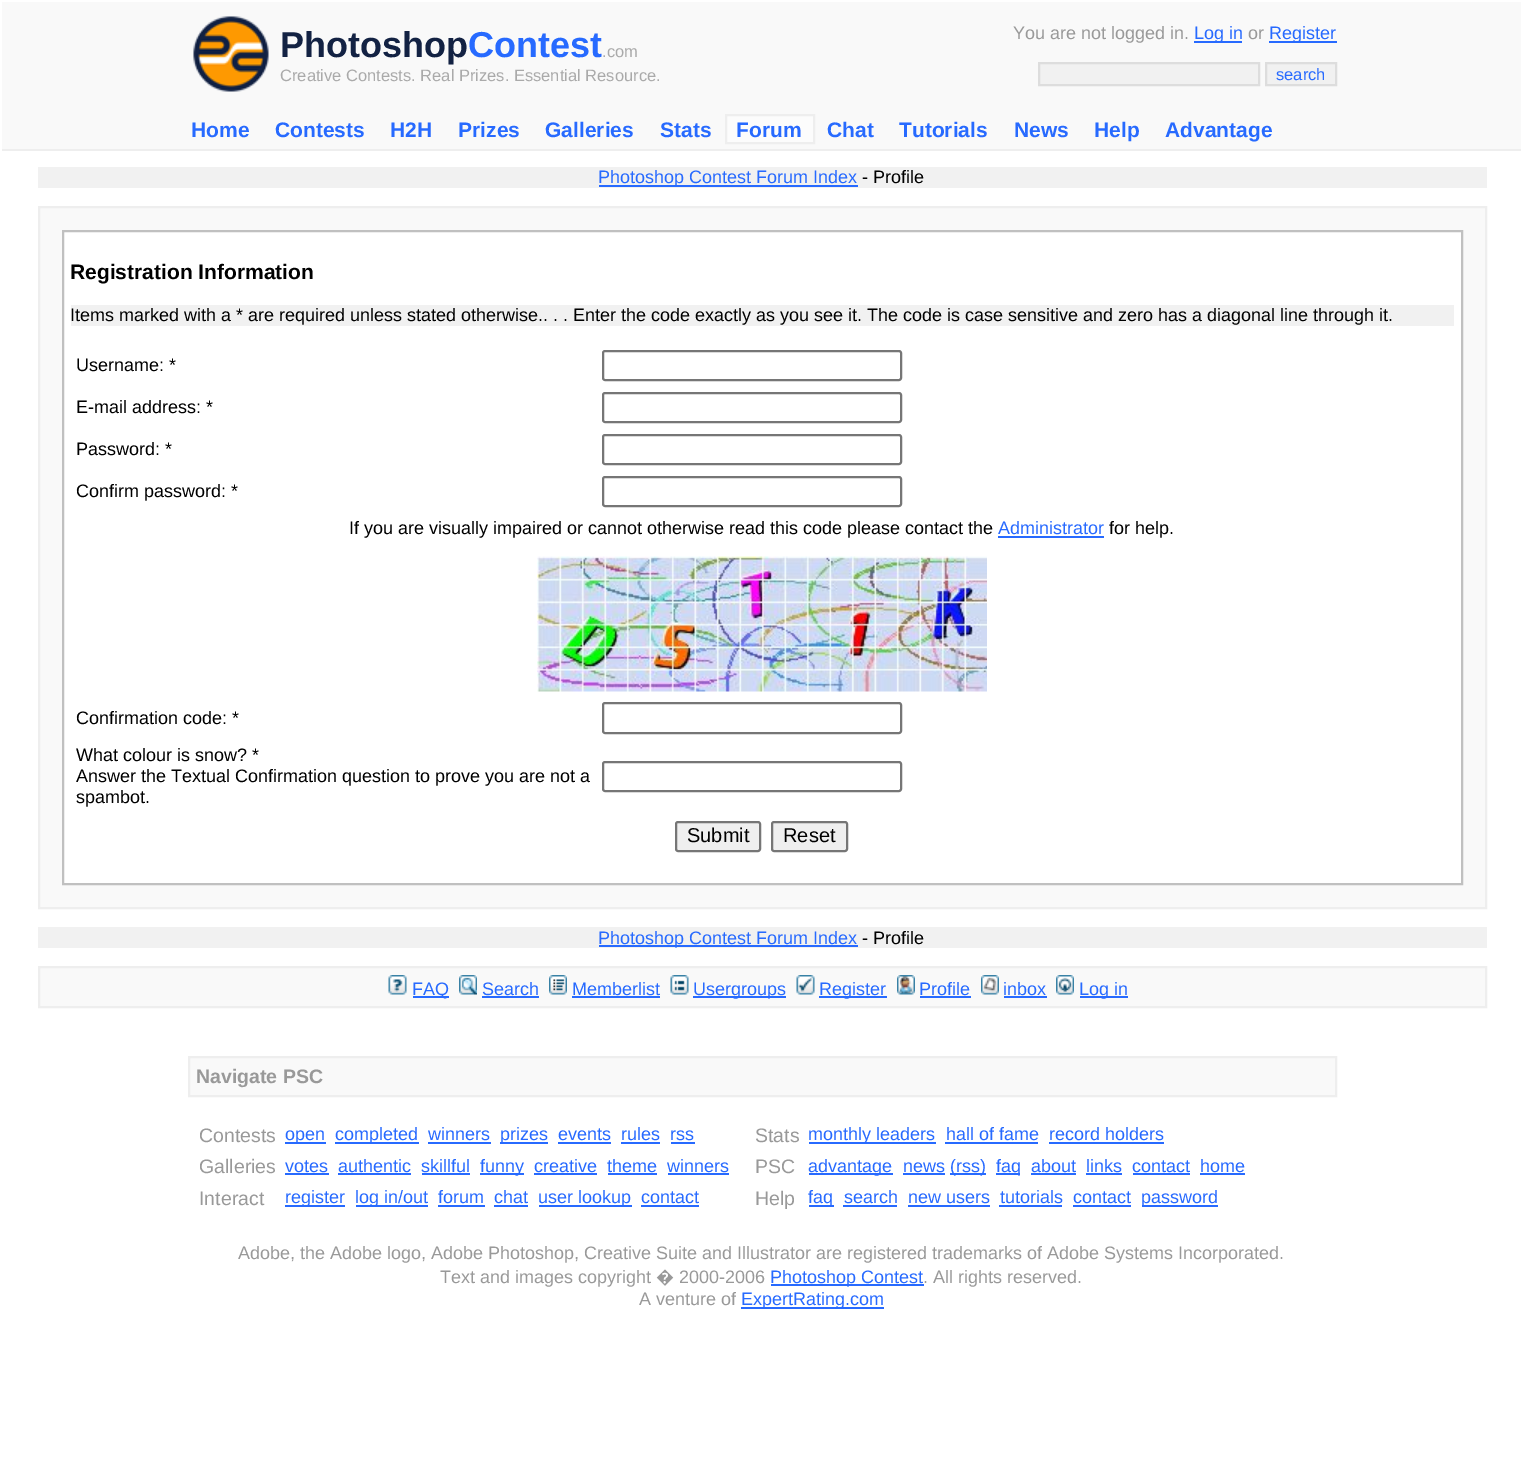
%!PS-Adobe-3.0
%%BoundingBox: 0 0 1522 1462
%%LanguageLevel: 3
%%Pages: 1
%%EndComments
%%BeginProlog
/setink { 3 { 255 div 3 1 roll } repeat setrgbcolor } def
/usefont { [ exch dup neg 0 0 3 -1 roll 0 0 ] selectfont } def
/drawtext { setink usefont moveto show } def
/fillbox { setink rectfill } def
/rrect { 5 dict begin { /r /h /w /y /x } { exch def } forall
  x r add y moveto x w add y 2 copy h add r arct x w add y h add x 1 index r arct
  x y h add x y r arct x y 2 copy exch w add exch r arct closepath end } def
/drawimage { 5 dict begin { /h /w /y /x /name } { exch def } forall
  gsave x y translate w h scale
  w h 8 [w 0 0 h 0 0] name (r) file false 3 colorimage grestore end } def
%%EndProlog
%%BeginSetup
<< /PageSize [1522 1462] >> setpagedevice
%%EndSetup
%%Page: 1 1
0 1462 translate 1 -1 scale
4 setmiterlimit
0 0 1522 1462 255 255 255 fillbox
2 2 1519 147 249 249 249 fillbox
(assets/img1.rgb) 193 16 76 76 drawimage
(Photoshop) 280 57 /LiberationSans-Bold 36 19 34 67 drawtext
(Contest) 468 57 /LiberationSans-Bold 36 39 106 255 drawtext
(.com) 602 57 /LiberationSans-Regular 16.5 170 170 170 drawtext
(Creative Contests. Real Prizes. Essential Resource.) 280 81 /LiberationSans-Regular 16.5 170 170 170 drawtext
(You are not logged in.) 1013 39 /LiberationSans-Regular 18 153 153 153 drawtext
1194 41 48 2 39 106 255 fillbox
(Log in) 1194 39 /LiberationSans-Regular 18 39 106 255 drawtext
(or) 1248 39 /LiberationSans-Regular 18 153 153 153 drawtext
1269 41 68 2 39 106 255 fillbox
(Register) 1269 39 /LiberationSans-Regular 18 39 106 255 drawtext
241 241 241 setink
1039 63 moveto 1259 63 lineto 1259 85 lineto 1039 85 lineto closepath gsave fill grestore
221 221 221 setink
2 setlinewidth
stroke
241 241 241 setink
1266 63 moveto 1336 63 lineto 1336 85 lineto 1266 85 lineto closepath gsave fill grestore
221 221 221 setink
stroke
(search) 1276 80 /LiberationSans-Regular 16.5 39 106 255 drawtext
2 149 1519 2 238 238 238 fillbox
(Home) 191 137 /LiberationSans-Bold 21 39 106 255 drawtext
(Contests) 275 137 /LiberationSans-Bold 21 39 106 255 drawtext
(H2H) 390 137 /LiberationSans-Bold 21 39 106 255 drawtext
(Prizes) 458 137 /LiberationSans-Bold 21 39 106 255 drawtext
(Galleries) 545 137 /LiberationSans-Bold 21 39 106 255 drawtext
(Stats) 660 137 /LiberationSans-Bold 21 39 106 255 drawtext
252 252 252 setink
726 115 moveto 814 115 lineto 814 143 lineto 726 143 lineto closepath gsave fill grestore
238 238 238 setink
stroke
(Forum) 736 137 /LiberationSans-Bold 21 39 106 255 drawtext
(Chat) 827 137 /LiberationSans-Bold 21 39 106 255 drawtext
(Tutorials) 899 137 /LiberationSans-Bold 21 39 106 255 drawtext
(News) 1014 137 /LiberationSans-Bold 21 39 106 255 drawtext
(Help) 1094 137 /LiberationSans-Bold 21 39 106 255 drawtext
(Advantage) 1165 137 /LiberationSans-Bold 21 39 106 255 drawtext
38 167 1449 21 241 241 241 fillbox
599 185 259 2 39 106 255 fillbox
(Photoshop Contest Forum Index) 598 183 /LiberationSans-Regular 18 39 106 255 drawtext
(- Profile) 862 183 /LiberationSans-Regular 18 0 0 0 drawtext
249 249 249 setink
39 207 moveto 1486 207 lineto 1486 908 lineto 39 908 lineto closepath gsave fill grestore
238 238 238 setink
stroke
255 255 255 setink
63 231 moveto 1462 231 lineto 1462 884 lineto 63 884 lineto closepath gsave fill grestore
192 192 192 setink
stroke
(Registration Information) 70 279 /LiberationSans-Bold 21 0 0 0 drawtext
71 305 1383 21 241 241 241 fillbox
(Items marked with a * are required unless stated otherwise.. . . Enter the code exactly as you see it. The code is case sensitive and zero has a diagonal line through it.) 70 321 /LiberationSans-Regular 18 0 0 0 drawtext
(Username: *) 76 371 /LiberationSans-Regular 18 0 0 0 drawtext
118 118 118 setink
603 351 298 29 2 rrect stroke
(E-mail address: *) 76 413 /LiberationSans-Regular 18 0 0 0 drawtext
118 118 118 setink
603 393 298 29 2 rrect stroke
(Password: *) 76 455 /LiberationSans-Regular 18 0 0 0 drawtext
118 118 118 setink
603 435 298 29 2 rrect stroke
(Confirm password: *) 76 497 /LiberationSans-Regular 18 0 0 0 drawtext
118 118 118 setink
603 477 298 29 2 rrect stroke
(If you are visually impaired or cannot otherwise read this code please contact the) 349 534 /LiberationSans-Regular 18 0 0 0 drawtext
(Administrator) 998 534 /LiberationSans-Regular 18 39 106 255 drawtext
998 536 106 2 39 106 255 fillbox
(for help.) 1109 534 /LiberationSans-Regular 18 0 0 0 drawtext
(assets/img2.rgb) 537 556 450 136 drawimage
(Confirmation code: *) 76 724 /LiberationSans-Regular 18 0 0 0 drawtext
118 118 118 setink
603 703 298 30 2 rrect stroke
(What colour is snow? *) 76 761 /LiberationSans-Regular 18 0 0 0 drawtext
(Answer the Textual Confirmation question to prove you are not a) 76 782 /LiberationSans-Regular 18 0 0 0 drawtext
(spambot.) 76 803 /LiberationSans-Regular 18 0 0 0 drawtext
118 118 118 setink
603 762 298 29 2 rrect stroke
239 239 239 setink
676 822 84 29 2 rrect gsave fill grestore
118 118 118 setink
stroke
(Submit) 687 842 /LiberationSans-Regular 20 0 0 0 drawtext
239 239 239 setink
772 822 75 29 2 rrect gsave fill grestore
118 118 118 setink
stroke
(Reset) 783 842 /LiberationSans-Regular 20 0 0 0 drawtext
38 927 1449 21 241 241 241 fillbox
599 945 259 2 39 106 255 fillbox
(Photoshop Contest Forum Index) 598 944 /LiberationSans-Regular 18 39 106 255 drawtext
(- Profile) 862 944 /LiberationSans-Regular 18 0 0 0 drawtext
249 249 249 setink
39 967 moveto 1486 967 lineto 1486 1007 lineto 39 1007 lineto closepath gsave fill grestore
238 238 238 setink
stroke
(assets/img3.rgb) 388 975 19 20 drawimage
413 996 36 2 39 106 255 fillbox
(FAQ) 412 995 /LiberationSans-Regular 18 39 106 255 drawtext
(assets/img4.rgb) 459 975 18 20 drawimage
(Search) 482 995 /LiberationSans-Regular 18 39 106 255 drawtext
482 996 57 2 39 106 255 fillbox
(assets/img5.rgb) 549 975 18 20 drawimage
(Memberlist) 572 995 /LiberationSans-Regular 18 39 106 255 drawtext
572 996 88 2 39 106 255 fillbox
(assets/img6.rgb) 670 975 19 20 drawimage
693 996 93 2 39 106 255 fillbox
(Usergroups) 693 995 /LiberationSans-Regular 18 39 106 255 drawtext
(assets/img7.rgb) 796 975 19 20 drawimage
819 996 68 2 39 106 255 fillbox
(Register) 819 995 /LiberationSans-Regular 18 39 106 255 drawtext
(assets/img8.rgb) 897 975 18 20 drawimage
(Profile) 919 995 /LiberationSans-Regular 18 39 106 255 drawtext
920 996 51 2 39 106 255 fillbox
(assets/img9.rgb) 981 975 18 20 drawimage
(inbox) 1003 995 /LiberationSans-Regular 18 39 106 255 drawtext
1004 996 43 2 39 106 255 fillbox
(assets/img10.rgb) 1056 975 18 20 drawimage
1080 996 48 2 39 106 255 fillbox
(Log in) 1079 995 /LiberationSans-Regular 18 39 106 255 drawtext
249 249 249 setink
189 1057 moveto 1336 1057 lineto 1336 1096 lineto 189 1096 lineto closepath gsave fill grestore
238 238 238 setink
stroke
(Navigate PSC) 196 1083 /LiberationSans-Bold 19.5 153 153 153 drawtext
(Contests) 199 1142 /LiberationSans-Regular 19.5 153 153 153 drawtext
285 1142 41 2 39 106 255 fillbox
(open) 285 1140 /LiberationSans-Regular 18 39 106 255 drawtext
335 1142 84 2 39 106 255 fillbox
(completed) 335 1140 /LiberationSans-Regular 18 39 106 255 drawtext
(winners) 428 1140 /LiberationSans-Regular 18 39 106 255 drawtext
428 1142 63 2 39 106 255 fillbox
500 1142 48 2 39 106 255 fillbox
(prizes) 500 1140 /LiberationSans-Regular 18 39 106 255 drawtext
(events) 558 1140 /LiberationSans-Regular 18 39 106 255 drawtext
558 1142 53 2 39 106 255 fillbox
(rules) 621 1140 /LiberationSans-Regular 18 39 106 255 drawtext
621 1142 39 2 39 106 255 fillbox
(rss) 670 1140 /LiberationSans-Regular 18 39 106 255 drawtext
671 1142 24 2 39 106 255 fillbox
(Galleries) 199 1173 /LiberationSans-Regular 19.5 153 153 153 drawtext
(votes) 285 1172 /LiberationSans-Regular 18 39 106 255 drawtext
285 1173 44 2 39 106 255 fillbox
(authentic) 338 1172 /LiberationSans-Regular 18 39 106 255 drawtext
338 1173 73 2 39 106 255 fillbox
(skillful) 421 1172 /LiberationSans-Regular 18 39 106 255 drawtext
422 1173 48 2 39 106 255 fillbox
480 1173 44 2 39 106 255 fillbox
(funny) 480 1172 /LiberationSans-Regular 18 39 106 255 drawtext
(creative) 534 1172 /LiberationSans-Regular 18 39 106 255 drawtext
534 1173 63 2 39 106 255 fillbox
(theme) 607 1172 /LiberationSans-Regular 18 39 106 255 drawtext
608 1173 49 2 39 106 255 fillbox
(winners) 667 1172 /LiberationSans-Regular 18 39 106 255 drawtext
668 1173 61 2 39 106 255 fillbox
(Interact) 199 1205 /LiberationSans-Regular 19.5 153 153 153 drawtext
285 1205 60 2 39 106 255 fillbox
(register) 285 1203 /LiberationSans-Regular 18 39 106 255 drawtext
356 1205 72 2 39 106 255 fillbox
(log in/out) 355 1203 /LiberationSans-Regular 18 39 106 255 drawtext
(forum) 438 1203 /LiberationSans-Regular 18 39 106 255 drawtext
438 1205 47 2 39 106 255 fillbox
(chat) 494 1203 /LiberationSans-Regular 18 39 106 255 drawtext
494 1205 34 2 39 106 255 fillbox
539 1205 93 2 39 106 255 fillbox
(user lookup) 538 1203 /LiberationSans-Regular 18 39 106 255 drawtext
(contact) 641 1203 /LiberationSans-Regular 18 39 106 255 drawtext
641 1205 58 2 39 106 255 fillbox
(Stats) 755 1142 /LiberationSans-Regular 19.5 153 153 153 drawtext
809 1142 127 2 39 106 255 fillbox
(monthly leaders) 808 1140 /LiberationSans-Regular 18 39 106 255 drawtext
(hall of fame) 946 1140 /LiberationSans-Regular 18 39 106 255 drawtext
945 1142 93 2 39 106 255 fillbox
(record holders) 1049 1140 /LiberationSans-Regular 18 39 106 255 drawtext
1049 1142 115 2 39 106 255 fillbox
(PSC) 755 1173 /LiberationSans-Regular 19.5 153 153 153 drawtext
809 1173 84 2 39 106 255 fillbox
(advantage) 808 1172 /LiberationSans-Regular 18 39 106 255 drawtext
(news) 903 1172 /LiberationSans-Regular 18 39 106 255 drawtext
903 1173 42 2 39 106 255 fillbox
950 1173 36 2 39 106 255 fillbox
(\(rss\)) 950 1172 /LiberationSans-Regular 18 39 106 255 drawtext
996 1173 24 2 39 106 255 fillbox
(faq) 996 1172 /LiberationSans-Regular 18 39 106 255 drawtext
(about) 1031 1172 /LiberationSans-Regular 18 39 106 255 drawtext
1031 1173 45 2 39 106 255 fillbox
(links) 1086 1172 /LiberationSans-Regular 18 39 106 255 drawtext
1086 1173 36 2 39 106 255 fillbox
(contact) 1132 1172 /LiberationSans-Regular 18 39 106 255 drawtext
1133 1173 57 2 39 106 255 fillbox
(home) 1200 1172 /LiberationSans-Regular 18 39 106 255 drawtext
1200 1173 45 2 39 106 255 fillbox
(Help) 755 1205 /LiberationSans-Regular 19.5 153 153 153 drawtext
809 1205 25 2 39 106 255 fillbox
(faq) 808 1203 /LiberationSans-Regular 18 39 106 255 drawtext
(search) 844 1203 /LiberationSans-Regular 18 39 106 255 drawtext
843 1205 54 2 39 106 255 fillbox
(new users) 908 1203 /LiberationSans-Regular 18 39 106 255 drawtext
908 1205 82 2 39 106 255 fillbox
(tutorials) 1000 1203 /LiberationSans-Regular 18 39 106 255 drawtext
999 1205 63 2 39 106 255 fillbox
(contact) 1073 1203 /LiberationSans-Regular 18 39 106 255 drawtext
1073 1205 58 2 39 106 255 fillbox
1142 1205 76 2 39 106 255 fillbox
(password) 1141 1203 /LiberationSans-Regular 18 39 106 255 drawtext
(Adobe, the Adobe logo, Adobe Photoshop, Creative Suite and Illustrator are registered trademarks of Adobe Systems Incorporated.) 238 1259 /LiberationSans-Regular 18 153 153 153 drawtext
(Text and images copyright) 440 1283 /LiberationSans-Regular 18 153 153 153 drawtext
(�) 656 1283 /NotoSans-Regular 18 153 153 153 drawtext
(2000-2006) 679 1283 /LiberationSans-Regular 18 153 153 153 drawtext
771 1284 153 2 39 106 255 fillbox
(Photoshop Contest) 770 1283 /LiberationSans-Regular 18 39 106 255 drawtext
(. All rights reserved.) 923 1283 /LiberationSans-Regular 18 153 153 153 drawtext
(A venture of) 639 1305 /LiberationSans-Regular 18 153 153 153 drawtext
741 1307 143 2 39 106 255 fillbox
(ExpertRating.com) 741 1305 /LiberationSans-Regular 18 39 106 255 drawtext
showpage
%%EOF
